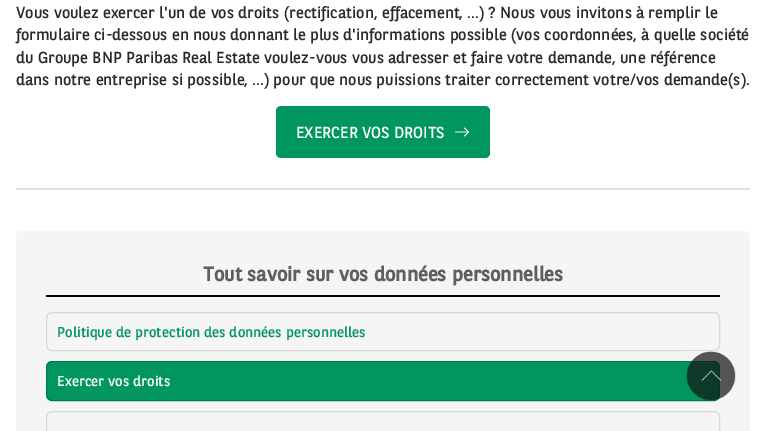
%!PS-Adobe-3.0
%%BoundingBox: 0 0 766 431
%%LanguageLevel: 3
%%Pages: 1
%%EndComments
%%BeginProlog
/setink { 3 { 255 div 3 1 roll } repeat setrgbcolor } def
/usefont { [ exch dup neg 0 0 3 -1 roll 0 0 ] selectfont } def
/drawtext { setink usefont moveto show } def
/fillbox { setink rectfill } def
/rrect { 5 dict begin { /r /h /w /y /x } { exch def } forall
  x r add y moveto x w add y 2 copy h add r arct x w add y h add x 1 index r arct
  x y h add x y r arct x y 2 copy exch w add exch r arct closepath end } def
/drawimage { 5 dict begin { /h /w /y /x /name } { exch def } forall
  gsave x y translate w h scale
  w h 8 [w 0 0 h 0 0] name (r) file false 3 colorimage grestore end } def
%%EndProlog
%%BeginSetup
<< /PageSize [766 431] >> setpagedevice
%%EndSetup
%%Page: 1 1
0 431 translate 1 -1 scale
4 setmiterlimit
0 0 766 431 255 255 255 fillbox
16 188 734 2 222 226 230 fillbox
(Vous voulez exercer l'un de vos droits \(rectification, effacement, ...\) ? Nous vous invitons à remplir le) 16 18 /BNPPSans-Regular 16 45 41 38 drawtext
(formulaire ci-dessous en nous donnant le plus d'informations possible \(vos coordonnées, à quelle société) 16 40 /BNPPSans-Regular 16 45 41 38 drawtext
(du Groupe BNP Paribas Real Estate voulez-vous vous adresser et faire votre demande, une référence) 16 63 /BNPPSans-Regular 16 45 41 38 drawtext
(dans notre entreprise si possible, ...\) pour que nous puissions traiter correctement votre/vos demande\(s\).) 16 85 /BNPPSans-Regular 16 45 41 38 drawtext
0 150 94 setink
276 106 214 52 5 rrect fill
(EXERCER VOS DROITS) 296 138 /BNPPSans-Regular 16 255 255 255 drawtext
(assets/img1.rgb) 455 127 14 10 drawimage
245 245 245 setink
16 231 734 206 6 rrect fill
46 295 674 2 0 0 0 fillbox
(Tout savoir sur vos données personnelles) 203 281 /BNPPSans-Bold 20 95 95 95 drawtext
216 216 216 setink
46.5 312.5 673 38 5.5 rrect stroke
(Politique de protection des données personnelles) 57 337 /BNPPSans-Regular 14.4 0 150 94 drawtext
46.5 361.5 673 39 5.5 rrect gsave fill grestore
0 122 77 setink
stroke
(Exercer vos droits) 57 386 /BNPPSans-Regular 14.4 255 255 255 drawtext
216 216 216 setink
46.5 411.5 673 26 5.5 rrect stroke
(assets/img2.rgb) 686 351 50 50 drawimage
showpage
%%EOF
